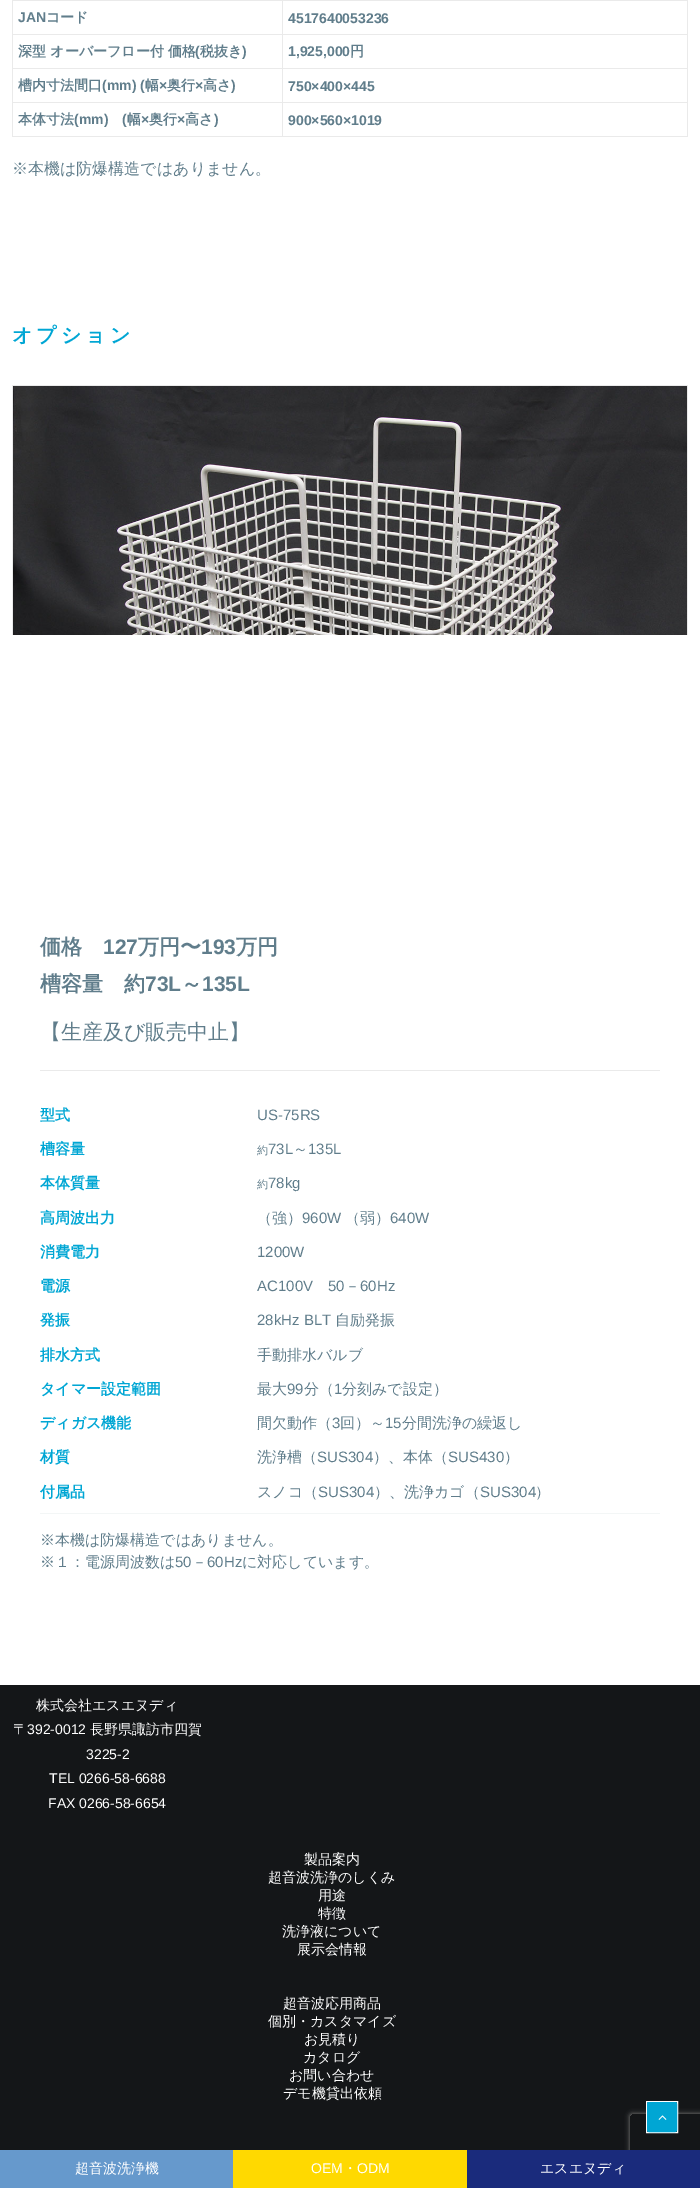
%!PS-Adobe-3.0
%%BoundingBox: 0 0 700 2188
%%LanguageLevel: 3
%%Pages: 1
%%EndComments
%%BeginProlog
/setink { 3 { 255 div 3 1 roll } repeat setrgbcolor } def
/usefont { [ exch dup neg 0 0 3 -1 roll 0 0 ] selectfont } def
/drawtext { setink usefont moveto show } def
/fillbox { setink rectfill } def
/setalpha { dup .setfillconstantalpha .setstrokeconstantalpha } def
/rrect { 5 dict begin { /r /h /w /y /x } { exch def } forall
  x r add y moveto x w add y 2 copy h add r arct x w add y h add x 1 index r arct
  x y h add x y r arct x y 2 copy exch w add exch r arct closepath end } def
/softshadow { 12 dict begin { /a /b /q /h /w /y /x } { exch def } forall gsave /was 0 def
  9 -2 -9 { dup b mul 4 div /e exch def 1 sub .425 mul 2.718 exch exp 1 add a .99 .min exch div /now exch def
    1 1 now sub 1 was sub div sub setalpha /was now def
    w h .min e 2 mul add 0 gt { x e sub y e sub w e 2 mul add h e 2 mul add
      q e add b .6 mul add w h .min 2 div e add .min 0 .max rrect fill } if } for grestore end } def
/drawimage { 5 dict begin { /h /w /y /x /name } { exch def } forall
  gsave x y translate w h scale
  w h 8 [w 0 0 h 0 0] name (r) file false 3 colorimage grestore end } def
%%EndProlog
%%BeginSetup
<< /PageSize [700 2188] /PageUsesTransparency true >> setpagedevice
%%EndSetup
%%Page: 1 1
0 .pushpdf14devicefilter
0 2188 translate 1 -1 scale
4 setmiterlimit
0 0 700 2188 20 22 24 fillbox
0 0 700 1685 255 255 255 fillbox
687 0 1 137 234 234 234 fillbox
12 136 676 1 234 234 234 fillbox
12 0 1 137 234 234 234 fillbox
282 102 1 35 234 234 234 fillbox
282 102 406 1 234 234 234 fillbox
282 68 1 35 234 234 234 fillbox
282 68 406 1 234 234 234 fillbox
282 34 1 35 234 234 234 fillbox
282 34 406 1 234 234 234 fillbox
282 0 1 35 234 234 234 fillbox
12 0 676 1 234 234 234 fillbox
12 34 271 1 234 234 234 fillbox
(JAN) 18 22 /LiberationSans-Bold 14 96 125 139 drawtext
(コード) 46 22 /WenQuanYiZenHei-Bold 14 96 125 139 drawtext
(4517640053236) 288 23 /LiberationSans-Bold 14 96 125 139 drawtext
12 68 271 1 234 234 234 fillbox
(深型 オーバーフロー付 価格) 18 56 /WenQuanYiZenHei-Bold 14 96 125 139 drawtext
(\() 195 56 /LiberationSans-Bold 14 96 125 139 drawtext
(税抜き) 200 56 /WenQuanYiZenHei-Bold 14 96 125 139 drawtext
(\)) 242 56 /LiberationSans-Bold 14 96 125 139 drawtext
(1,925,000) 288 56 /LiberationSans-Bold 14 96 125 139 drawtext
(円) 350 56 /WenQuanYiZenHei-Bold 14 96 125 139 drawtext
12 102 271 1 234 234 234 fillbox
(槽内寸法間口) 18 90 /WenQuanYiZenHei-Bold 14 96 125 139 drawtext
(\(mm\) \() 102 90 /LiberationSans-Bold 14 96 125 139 drawtext
(幅) 145 90 /WenQuanYiZenHei-Bold 14 96 125 139 drawtext
(×) 159 90 /LiberationSans-Bold 14 96 125 139 drawtext
(奥行) 167 90 /WenQuanYiZenHei-Bold 14 96 125 139 drawtext
(×) 195 90 /LiberationSans-Bold 14 96 125 139 drawtext
(高さ) 203 90 /WenQuanYiZenHei-Bold 14 96 125 139 drawtext
(\)) 231 90 /LiberationSans-Bold 14 96 125 139 drawtext
(750×400×445) 288 91 /LiberationSans-Bold 14 96 125 139 drawtext
(本体寸法) 18 124 /WenQuanYiZenHei-Bold 14 96 125 139 drawtext
(\(mm\)) 74 124 /LiberationSans-Bold 14 96 125 139 drawtext
(\() 122 124 /LiberationSans-Bold 14 96 125 139 drawtext
(幅) 127 124 /WenQuanYiZenHei-Bold 14 96 125 139 drawtext
(×) 141 124 /LiberationSans-Bold 14 96 125 139 drawtext
(奥行) 149 124 /WenQuanYiZenHei-Bold 14 96 125 139 drawtext
(×) 177 124 /LiberationSans-Bold 14 96 125 139 drawtext
(高さ) 185 124 /WenQuanYiZenHei-Bold 14 96 125 139 drawtext
(\)) 214 124 /LiberationSans-Bold 14 96 125 139 drawtext
(900×560×1019) 288 125 /LiberationSans-Bold 14 96 125 139 drawtext
(※本機は防爆構造ではありません。) 12 174 /WenQuanYiZenHei-Medium 16 96 125 139 drawtext
/WenQuanYiZenHei-Bold 20 usefont
0 166 212 setink
12 342 moveto 4 0 (オプション) ashow
gsave
12 385 676 250 rectclip
234 234 234 setink
12.5 385.5 675 502 rectstroke
grestore
(assets/img1.rgb) 13 386 674 249 drawimage
(価格) 40 954 /WenQuanYiZenHei-Bold 21 96 125 139 drawtext
(127) 103 954 /LiberationSans-Bold 21 96 125 139 drawtext
(万円〜) 138 954 /WenQuanYiZenHei-Bold 21 96 125 139 drawtext
(193) 201 954 /LiberationSans-Bold 21 96 125 139 drawtext
(万円) 236 954 /WenQuanYiZenHei-Bold 21 96 125 139 drawtext
(槽容量　約) 40 991 /WenQuanYiZenHei-Bold 21 96 125 139 drawtext
(73L) 145 991 /LiberationSans-Bold 21 96 125 139 drawtext
(～) 181 991 /WenQuanYiZenHei-Bold 21 96 125 139 drawtext
(135L) 202 991 /LiberationSans-Bold 21 96 125 139 drawtext
(【生産及び販売中止】) 40 1039 /WenQuanYiZenHei-Medium 21 96 125 139 drawtext
40 1070 620 1 234 234 234 fillbox
(型式) 40 1120 /WenQuanYiZenHei-Bold 15 0 166 212 drawtext
(US-75RS) 257 1120 /LiberationSans-Regular 15 96 125 139 drawtext
(槽容量) 40 1154 /WenQuanYiZenHei-Bold 15 0 166 212 drawtext
(約) 257 1154 /WenQuanYiZenHei-Medium 11 96 125 139 drawtext
(73L) 268 1154 /LiberationSans-Regular 15 96 125 139 drawtext
(～) 293 1154 /WenQuanYiZenHei-Medium 15 96 125 139 drawtext
(135L) 308 1154 /LiberationSans-Regular 15 96 125 139 drawtext
(本体質量) 40 1188 /WenQuanYiZenHei-Bold 15 0 166 212 drawtext
(約) 257 1188 /WenQuanYiZenHei-Medium 11 96 125 139 drawtext
(78kg) 268 1188 /LiberationSans-Regular 15 96 125 139 drawtext
(高周波出力) 40 1223 /WenQuanYiZenHei-Bold 15 0 166 212 drawtext
(（強）) 257 1223 /WenQuanYiZenHei-Medium 15 96 125 139 drawtext
(960W) 302 1223 /LiberationSans-Regular 15 96 125 139 drawtext
(（弱）) 345 1223 /WenQuanYiZenHei-Medium 15 96 125 139 drawtext
(640W) 390 1223 /LiberationSans-Regular 15 96 125 139 drawtext
(消費電力) 40 1257 /WenQuanYiZenHei-Bold 15 0 166 212 drawtext
(1200W) 257 1257 /LiberationSans-Regular 15 96 125 139 drawtext
(電源) 40 1291 /WenQuanYiZenHei-Bold 15 0 166 212 drawtext
(AC100V) 257 1291 /LiberationSans-Regular 15 96 125 139 drawtext
(50) 328 1291 /LiberationSans-Regular 15 96 125 139 drawtext
(－) 345 1291 /WenQuanYiZenHei-Medium 15 96 125 139 drawtext
(60Hz) 360 1291 /LiberationSans-Regular 15 96 125 139 drawtext
(発振) 40 1325 /WenQuanYiZenHei-Bold 15 0 166 212 drawtext
(28kHz BLT) 257 1325 /LiberationSans-Regular 15 96 125 139 drawtext
(自励発振) 335 1325 /WenQuanYiZenHei-Medium 15 96 125 139 drawtext
(排水方式) 40 1360 /WenQuanYiZenHei-Bold 15 0 166 212 drawtext
(手動排水バルブ) 257 1360 /WenQuanYiZenHei-Medium 15 96 125 139 drawtext
(タイマー設定範囲) 40 1394 /WenQuanYiZenHei-Bold 15 0 166 212 drawtext
(最大) 257 1394 /WenQuanYiZenHei-Medium 15 96 125 139 drawtext
(99) 287 1394 /LiberationSans-Regular 15 96 125 139 drawtext
(分（) 304 1394 /WenQuanYiZenHei-Medium 15 96 125 139 drawtext
(1) 334 1394 /LiberationSans-Regular 15 96 125 139 drawtext
(分刻みで設定）) 342 1394 /WenQuanYiZenHei-Medium 15 96 125 139 drawtext
(ディガス機能) 40 1428 /WenQuanYiZenHei-Bold 15 0 166 212 drawtext
(間欠動作（) 257 1428 /WenQuanYiZenHei-Medium 15 96 125 139 drawtext
(3) 332 1428 /LiberationSans-Regular 15 96 125 139 drawtext
(回）～) 340 1428 /WenQuanYiZenHei-Medium 15 96 125 139 drawtext
(15) 385 1428 /LiberationSans-Regular 15 96 125 139 drawtext
(分間洗浄の繰返し) 402 1428 /WenQuanYiZenHei-Medium 15 96 125 139 drawtext
(材質) 40 1462 /WenQuanYiZenHei-Bold 15 0 166 212 drawtext
(洗浄槽（) 257 1462 /WenQuanYiZenHei-Medium 15 96 125 139 drawtext
(SUS304) 317 1462 /LiberationSans-Regular 15 96 125 139 drawtext
(）、本体（) 373 1462 /WenQuanYiZenHei-Medium 15 96 125 139 drawtext
(SUS430) 448 1462 /LiberationSans-Regular 15 96 125 139 drawtext
(）) 504 1462 /WenQuanYiZenHei-Medium 15 96 125 139 drawtext
(付属品) 40 1497 /WenQuanYiZenHei-Bold 15 0 166 212 drawtext
(スノコ（) 257 1497 /WenQuanYiZenHei-Medium 15 96 125 139 drawtext
(SUS304) 318 1497 /LiberationSans-Regular 15 96 125 139 drawtext
(）、洗浄カゴ（) 374 1497 /WenQuanYiZenHei-Medium 15 96 125 139 drawtext
(SUS304) 480 1497 /LiberationSans-Regular 15 96 125 139 drawtext
(）) 535 1497 /WenQuanYiZenHei-Medium 15 96 125 139 drawtext
40 1513 620 1 243 246 246 fillbox
(※本機は防爆構造ではありません。) 40 1545 /WenQuanYiZenHei-Medium 15 96 125 139 drawtext
(※１：電源周波数は) 40 1567 /WenQuanYiZenHei-Medium 15 96 125 139 drawtext
(50) 175 1567 /LiberationSans-Regular 15 96 125 139 drawtext
(－) 192 1567 /WenQuanYiZenHei-Medium 15 96 125 139 drawtext
(60Hz) 207 1567 /LiberationSans-Regular 15 96 125 139 drawtext
(に対応しています。) 242 1567 /WenQuanYiZenHei-Medium 15 96 125 139 drawtext
(株式会社エスエヌディ) 36 1710 /WenQuanYiZenHei-Medium 14 255 255 255 drawtext
(〒) 13 1734 /WenQuanYiZenHei-Medium 14 255 255 255 drawtext
(392-0012) 27 1734 /LiberationSans-Regular 14 255 255 255 drawtext
(長野県諏訪市四賀) 90 1734 /WenQuanYiZenHei-Medium 14 255 255 255 drawtext
(3225-2) 86 1759 /LiberationSans-Regular 14 255 255 255 drawtext
(TEL 0266-58-6688) 49 1783 /LiberationSans-Regular 14 255 255 255 drawtext
(FAX 0266-58-6654) 48 1808 /LiberationSans-Regular 14 255 255 255 drawtext
(製品案内) 304 1864 /WenQuanYiZenHei-Medium 14 255 255 255 drawtext
(超音波洗浄のしくみ) 268 1882 /WenQuanYiZenHei-Medium 14 255 255 255 drawtext
(用途) 318 1900 /WenQuanYiZenHei-Medium 14 255 255 255 drawtext
(特徴) 318 1918 /WenQuanYiZenHei-Medium 14 255 255 255 drawtext
(洗浄液について) 282 1936 /WenQuanYiZenHei-Medium 14 255 255 255 drawtext
(展示会情報) 297 1954 /WenQuanYiZenHei-Medium 14 255 255 255 drawtext
(超音波応用商品) 283 2008 /WenQuanYiZenHei-Medium 14 255 255 255 drawtext
(個別・カスタマイズ) 268 2026 /WenQuanYiZenHei-Medium 14 255 255 255 drawtext
(お見積り) 304 2044 /WenQuanYiZenHei-Medium 14 255 255 255 drawtext
(カタログ) 303 2062 /WenQuanYiZenHei-Medium 14 255 255 255 drawtext
(お問い合わせ) 289 2080 /WenQuanYiZenHei-Medium 14 255 255 255 drawtext
(デモ機貸出依頼) 283 2098 /WenQuanYiZenHei-Medium 14 255 255 255 drawtext
gsave
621 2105 moveto 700 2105 lineto 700 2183 lineto 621 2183 lineto closepath 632 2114 moveto 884 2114 lineto 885 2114 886 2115 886 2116 curveto 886 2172 lineto 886 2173 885 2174 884 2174 curveto 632 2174 lineto 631 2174 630 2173 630 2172 curveto 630 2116 lineto 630 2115 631 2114 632 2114 curveto closepath eoclip newpath
128 128 128 setink
630 2114 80 60 2 2.5 1 softshadow
grestore
646.5 2101.5 31 31 rectstroke
0 166 212 setink
647.5 2102.5 29 29 1.5 rrect gsave fill grestore
stroke
(assets/img2.rgb) 658 2115 9 5 drawimage
0 2150 233 38 102 153 204 fillbox
(超音波洗浄機) 75 2173 /WenQuanYiZenHei-Medium 14 255 255 255 drawtext
233 2150 234 38 255 217 0 fillbox
(OEM) 311 2173 /LiberationSans-Regular 14 255 255 255 drawtext
(・) 343 2173 /WenQuanYiZenHei-Medium 14 255 255 255 drawtext
(ODM) 357 2173 /LiberationSans-Regular 14 255 255 255 drawtext
467 2150 233 38 26 43 124 fillbox
(エスエヌディ) 540 2173 /WenQuanYiZenHei-Medium 14 255 255 255 drawtext
.poppdf14devicefilter showpage
%%EOF
